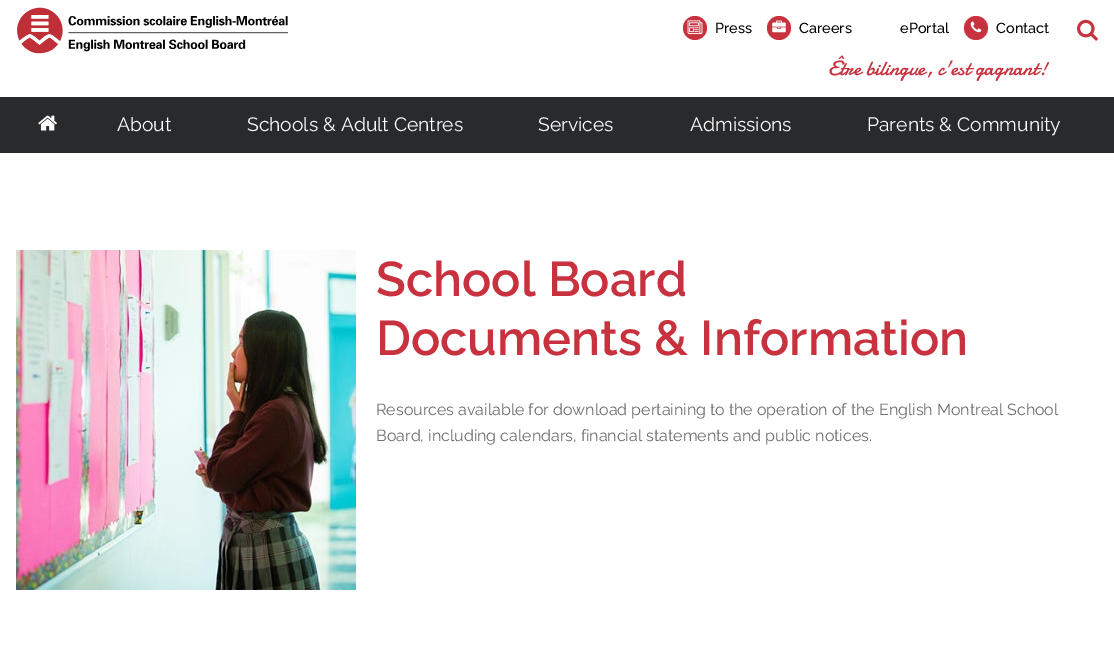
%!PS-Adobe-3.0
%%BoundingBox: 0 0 1114 669
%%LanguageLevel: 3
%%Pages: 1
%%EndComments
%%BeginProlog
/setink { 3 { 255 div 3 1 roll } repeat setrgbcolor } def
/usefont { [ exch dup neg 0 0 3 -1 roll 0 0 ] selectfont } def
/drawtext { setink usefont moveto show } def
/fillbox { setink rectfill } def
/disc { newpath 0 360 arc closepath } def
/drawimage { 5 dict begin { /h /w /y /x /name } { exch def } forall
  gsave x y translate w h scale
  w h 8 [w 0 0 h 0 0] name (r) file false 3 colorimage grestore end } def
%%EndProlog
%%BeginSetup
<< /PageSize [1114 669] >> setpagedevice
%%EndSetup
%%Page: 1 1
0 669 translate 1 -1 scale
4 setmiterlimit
0 0 1114 669 255 255 255 fillbox
(assets/img1.rgb) 17 7 271 47 drawimage
199 50 62 setink
695 28 12 disc fill
(assets/img2.rgb) 687 20 16 15 drawimage
(Press) 715 33 /Raleway-Medium 14.5 0 0 0 drawtext
199 50 62 setink
779 28 12 disc fill
(assets/img3.rgb) 772 20 14 13 drawimage
(Careers) 799 33 /Raleway-Medium 14.5 0 0 0 drawtext
(ePortal) 900 33 /Raleway-Medium 14.5 0 0 0 drawtext
199 50 62 setink
976 28 12 disc fill
(assets/img4.rgb) 970 21 12 12 drawimage
(Contact) 996 33 /Raleway-Medium 14.5 0 0 0 drawtext
(Être bilingue, c'est gagnant!) 828 75 /Damion-Regular 20.75 199 50 62 drawtext
(assets/img5.rgb) 1077 19 21 22 drawimage
0 97 1114 56 41 42 44 fillbox
(assets/img6.rgb) 38 115 19 16 drawimage
(About) 117 131 /Raleway-Regular 19.25 255 255 255 drawtext
(Schools & Adult Centres) 247 131 /Raleway-Regular 19.25 255 255 255 drawtext
(Services) 538 131 /Raleway-Regular 19.25 255 255 255 drawtext
(Admissions) 690 131 /Raleway-Regular 19.25 255 255 255 drawtext
(Parents & Community) 867 131 /Raleway-Regular 19.25 255 255 255 drawtext
(assets/img7.rgb) 16 250 340 340 drawimage
(School Board) 376 296 /Raleway-SemiBold 48.75 199 50 62 drawtext
(Documents & Information) 376 355 /Raleway-SemiBold 48.75 199 50 62 drawtext
(Resources available for download pertaining to the operation of the English Montreal School) 376 415 /Raleway-Regular 16 109 109 109 drawtext
(Board, including calendars, financial statements and public notices.) 376 441 /Raleway-Regular 16 109 109 109 drawtext
showpage
%%EOF
